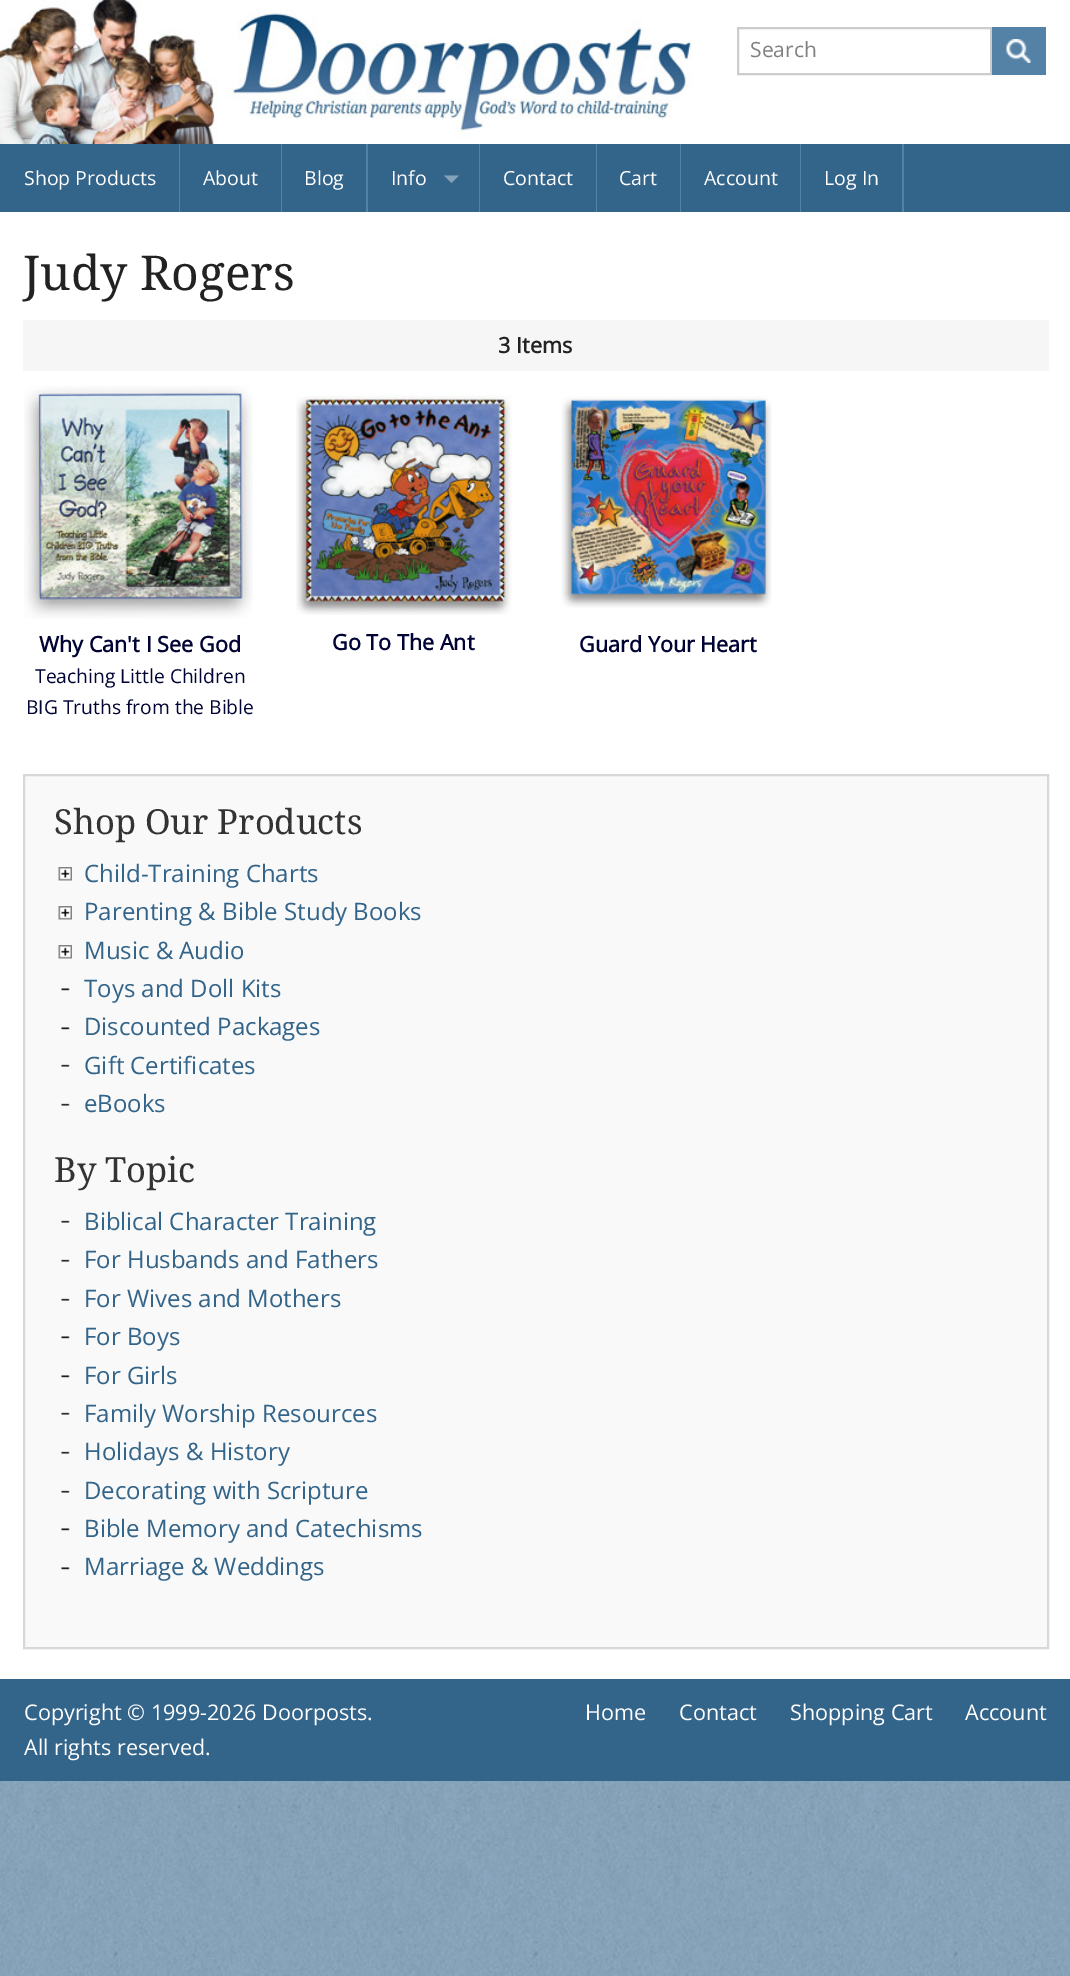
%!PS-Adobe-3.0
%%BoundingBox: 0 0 1070 1976
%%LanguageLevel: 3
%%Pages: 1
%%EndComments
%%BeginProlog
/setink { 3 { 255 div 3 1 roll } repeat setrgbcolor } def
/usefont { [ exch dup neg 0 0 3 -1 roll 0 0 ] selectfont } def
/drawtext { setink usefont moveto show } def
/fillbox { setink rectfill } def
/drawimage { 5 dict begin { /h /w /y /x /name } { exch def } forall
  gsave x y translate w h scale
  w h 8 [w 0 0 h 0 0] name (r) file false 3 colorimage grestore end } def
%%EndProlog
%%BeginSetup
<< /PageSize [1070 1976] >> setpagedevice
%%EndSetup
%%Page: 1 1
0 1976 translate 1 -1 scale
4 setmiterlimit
0 0 1070 1976 255 255 255 fillbox
(assets/img1.rgb) 0 1781 1070 195 drawimage
(assets/img2.rgb) 0 0 692 144 drawimage
204 204 204 setink
2 setlinewidth
738 28 253 46 rectstroke
(Search) 750 57 /OpenSans-Regular 21 128 128 128 drawtext
992 27 54 48 84 130 166 fillbox
(assets/img3.rgb) 1006 39 25 24 drawimage
0 144 1070 68 51 100 137 fillbox
(Shop Products) 24 185 /OpenSans-Regular 19.5 255 255 255 drawtext
179 144 1 68 84 130 166 fillbox
(About) 203 185 /OpenSans-Regular 19.5 255 255 255 drawtext
281 144 1 68 84 130 166 fillbox
(Blog) 304 185 /OpenSans-Regular 19.5 255 255 255 drawtext
366 144 2 68 84 130 166 fillbox
(Info) 391 185 /OpenSans-Regular 19.5 255 255 255 drawtext
133 162 184 setink
444 175.5 moveto 459 175.5 lineto 451.5 183 lineto closepath fill
479 144 1 68 84 130 166 fillbox
(Contact) 503 185 /OpenSans-Regular 19.5 255 255 255 drawtext
596 144 1 68 84 130 166 fillbox
(Cart) 619 185 /OpenSans-Regular 19.5 255 255 255 drawtext
680 144 1 68 84 130 166 fillbox
(Account) 704 185 /OpenSans-Regular 19.5 255 255 255 drawtext
800 144 1 68 84 130 166 fillbox
(Log In) 824 185 /OpenSans-Regular 19.5 255 255 255 drawtext
902 144 2 68 84 130 166 fillbox
(Judy Rogers) 23 290 /DroidSerif-Regular 48 34 34 34 drawtext
23 320 1026 51 246 246 246 fillbox
(3 Items) 498 353 /OpenSans-Bold 21.6 34 34 34 drawtext
(assets/img4.rgb) 24 385 229 234 drawimage
(Why Can't I See God) 39 652 /OpenSans-Bold 21.6 0 3 51 drawtext
(Teaching Little Children) 35 683 /OpenSans-Regular 19.25 0 3 51 drawtext
(BIG Truths from the Bible) 26 714 /OpenSans-Regular 19.25 0 3 51 drawtext
(assets/img5.rgb) 296 395 216 220 drawimage
(Go To The Ant) 332 650 /OpenSans-Bold 21.6 0 3 51 drawtext
(assets/img6.rgb) 561 395 211 213 drawimage
(Guard Your Heart) 579 652 /OpenSans-Bold 21.6 0 3 51 drawtext
249 249 249 setink
24 775 moveto 1048 775 lineto 1048 1648 lineto 24 1648 lineto closepath gsave fill grestore
216 216 216 setink
stroke
(Shop Our Products) 54 834 /DroidSerif-Regular 34.5 51 51 51 drawtext
(assets/img7.rgb) 58 867 14 14 drawimage
(Child-Training Charts) 84 882 /OpenSans-Regular 24 51 100 137 drawtext
(assets/img7.rgb) 58 906 14 14 drawimage
(Parenting & Bible Study Books) 84 920 /OpenSans-Regular 24 51 100 137 drawtext
(assets/img7.rgb) 58 945 14 14 drawimage
(Music & Audio) 84 959 /OpenSans-Regular 24 51 100 137 drawtext
(assets/img8.rgb) 61 988 9 3 drawimage
(Toys and Doll Kits) 84 997 /OpenSans-Regular 24 51 100 137 drawtext
(assets/img8.rgb) 61 1027 9 3 drawimage
(Discounted Packages) 84 1035 /OpenSans-Regular 24 51 100 137 drawtext
(assets/img9.rgb) 61 1064 9 3 drawimage
(Gift Certificates) 84 1074 /OpenSans-Regular 24 51 100 137 drawtext
(assets/img9.rgb) 61 1103 9 3 drawimage
(eBooks) 84 1112 /OpenSans-Regular 24 51 100 137 drawtext
(By Topic) 54 1182 /DroidSerif-Regular 34.5 51 51 51 drawtext
(assets/img9.rgb) 61 1220 9 3 drawimage
(Biblical Character Training) 84 1230 /OpenSans-Regular 24 51 100 137 drawtext
(assets/img9.rgb) 61 1259 9 3 drawimage
(For Husbands and Fathers) 84 1268 /OpenSans-Regular 24 51 100 137 drawtext
(assets/img9.rgb) 61 1298 9 3 drawimage
(For Wives and Mothers) 84 1307 /OpenSans-Regular 24 51 100 137 drawtext
(assets/img8.rgb) 61 1336 9 3 drawimage
(For Boys) 84 1345 /OpenSans-Regular 24 51 100 137 drawtext
(assets/img8.rgb) 61 1375 9 3 drawimage
(For Girls) 84 1384 /OpenSans-Regular 24 51 100 137 drawtext
(assets/img9.rgb) 61 1412 9 3 drawimage
(Family Worship Resources) 84 1422 /OpenSans-Regular 24 51 100 137 drawtext
(assets/img9.rgb) 61 1451 9 3 drawimage
(Holidays & History) 84 1460 /OpenSans-Regular 24 51 100 137 drawtext
(assets/img9.rgb) 61 1490 9 3 drawimage
(Decorating with Scripture) 84 1499 /OpenSans-Regular 24 51 100 137 drawtext
(assets/img8.rgb) 61 1528 9 3 drawimage
(Bible Memory and Catechisms) 84 1537 /OpenSans-Regular 24 51 100 137 drawtext
(assets/img8.rgb) 61 1567 9 3 drawimage
(Marriage & Weddings) 84 1575 /OpenSans-Regular 24 51 100 137 drawtext
0 1679 1070 102 51 100 137 fillbox
(Copyright © 1999-2026 Doorposts.) 24 1720 /OpenSans-Regular 21.6 255 255 255 drawtext
(All rights reserved.) 24 1755 /OpenSans-Regular 21.6 255 255 255 drawtext
(Home) 585 1720 /OpenSans-Regular 21.6 255 255 255 drawtext
(Contact) 679 1720 /OpenSans-Regular 21.6 255 255 255 drawtext
(Shopping Cart) 790 1720 /OpenSans-Regular 21.6 255 255 255 drawtext
(Account) 965 1720 /OpenSans-Regular 21.6 255 255 255 drawtext
showpage
%%EOF
